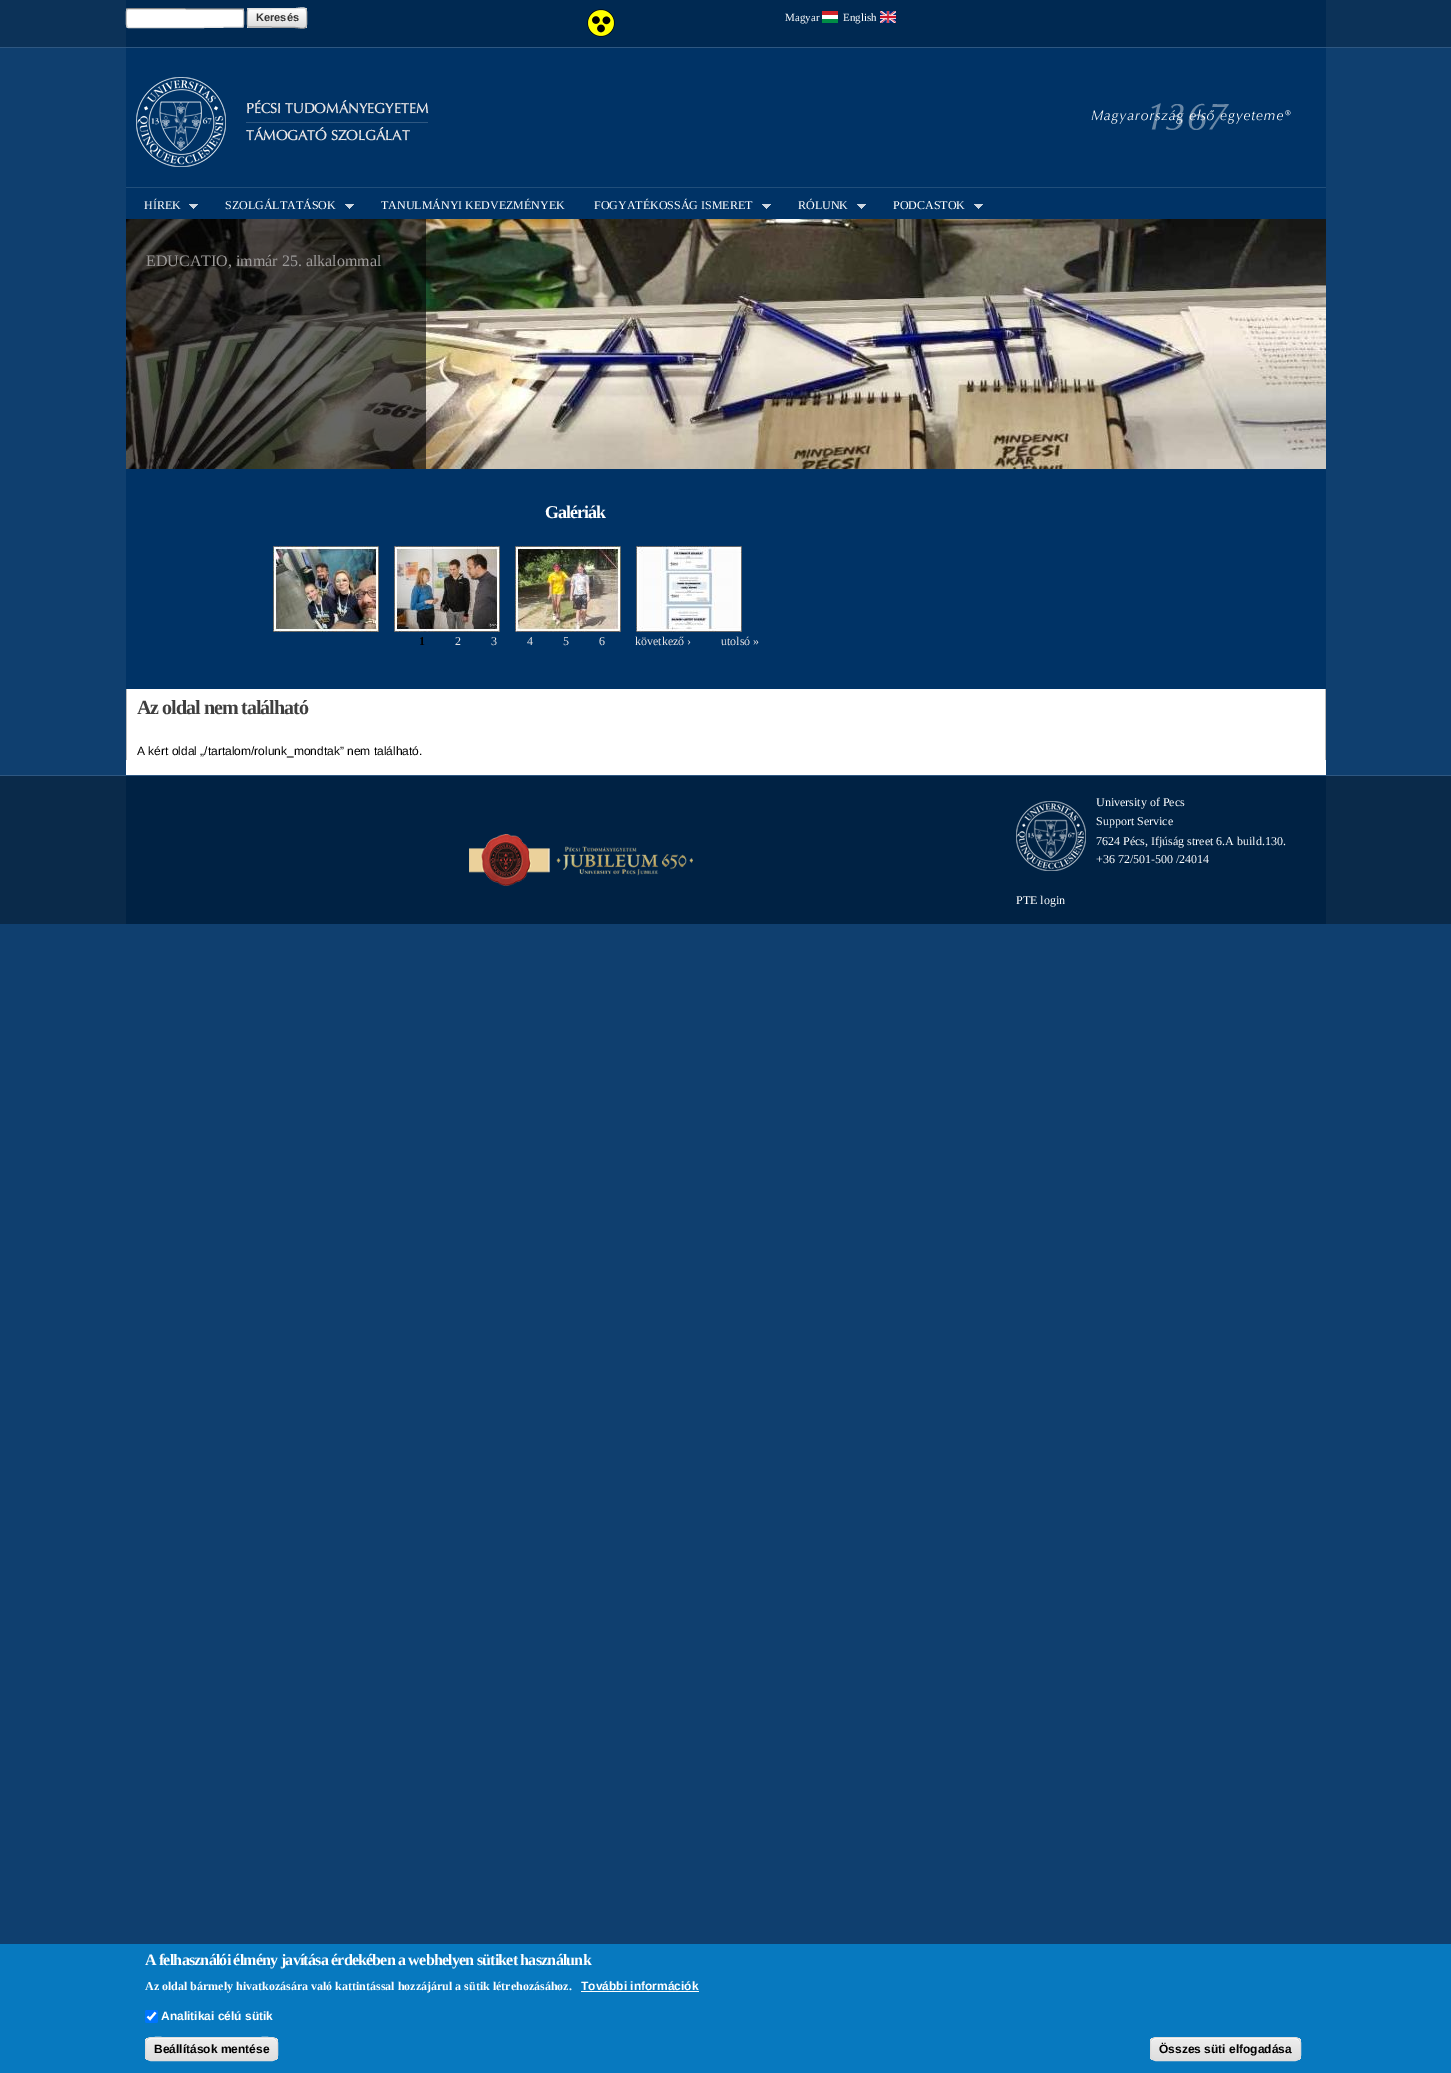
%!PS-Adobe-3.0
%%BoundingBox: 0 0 1451 2073
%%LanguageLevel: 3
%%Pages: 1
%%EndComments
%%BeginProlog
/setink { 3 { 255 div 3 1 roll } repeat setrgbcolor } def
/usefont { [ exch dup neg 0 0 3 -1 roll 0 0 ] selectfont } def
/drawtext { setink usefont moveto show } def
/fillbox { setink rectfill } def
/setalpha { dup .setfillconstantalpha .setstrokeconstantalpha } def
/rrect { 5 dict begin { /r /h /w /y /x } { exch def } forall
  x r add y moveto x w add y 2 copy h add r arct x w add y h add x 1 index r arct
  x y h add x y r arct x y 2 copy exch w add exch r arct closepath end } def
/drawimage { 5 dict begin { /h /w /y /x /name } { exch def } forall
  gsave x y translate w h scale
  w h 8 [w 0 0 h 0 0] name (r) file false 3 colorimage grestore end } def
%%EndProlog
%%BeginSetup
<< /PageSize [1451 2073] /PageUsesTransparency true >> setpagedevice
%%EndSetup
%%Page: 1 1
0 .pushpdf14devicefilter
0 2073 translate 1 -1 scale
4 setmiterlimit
0 0 1451 2073 15 63 111 fillbox
0 0 1451 47 12 50 88 fillbox
0 47 1451 1 46 87 129 fillbox
126 0 1200 47 0 41 82 fillbox
255 255 255 setink
127 9 116 18 1 rrect fill
132 132 132 setink
127 9 moveto 128 8.5 lineto 243 9 lineto stroke
193 193 193 setink
243 9 moveto 244 9.5 244 26.5 243 27 curveto stroke
225 225 225 setink
243 27 moveto 204 27.5 lineto 128 27.5 lineto 127 27 lineto stroke
193 193 193 setink
127 27 moveto 126 26.5 126 9.5 127 9 curveto stroke
gsave
247 8 60 20 2 rrect clip newpath
gsave 247 8 moveto 307 8 lineto 307 9 lineto 247 9 lineto closepath clip newpath
<< /ShadingType 2 /ColorSpace /DeviceRGB /Coords [248 -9 248 9] /Extend [true true] /Function << /FunctionType 2 /Domain [0 1] /C0 [1 1 1] /C1 [0.867 0.867 0.867] /N 1 >> >> shfill grestore
gsave 247 9 moveto 307 9 lineto 307 27 lineto 247 27 lineto closepath clip newpath
<< /ShadingType 2 /ColorSpace /DeviceRGB /Coords [248 9 248 27] /Extend [true true] /Function << /FunctionType 2 /Domain [0 1] /C0 [1 1 1] /C1 [0.867 0.867 0.867] /N 1 >> >> shfill grestore
gsave 247 27 moveto 307 27 lineto 307 28 lineto 247 28 lineto closepath clip newpath
<< /ShadingType 2 /ColorSpace /DeviceRGB /Coords [248 27 248 45] /Extend [true true] /Function << /FunctionType 2 /Domain [0 1] /C0 [1 1 1] /C1 [0.867 0.867 0.867] /N 1 >> >> shfill grestore
grestore
221 221 221 setink
248 9 moveto 295.5 8.5 lineto 299 8.5 303.5 6.5 306 9 curveto stroke
187 187 187 setink
306 9 moveto 307 9.5 307 26.5 306 27 curveto stroke
153 153 153 setink
306 27 moveto 303.5 29.5 299 27.5 295.5 27.5 curveto 248 27 lineto stroke
187 187 187 setink
248 27 moveto 247 26.5 247 9.5 248 9 curveto stroke
(Keresés) 256 21 /LiberationSans-Bold 11 51 51 51 drawtext
(assets/img1.rgb) 587 9 28 28 drawimage
(Magyar) 785 21 /LiberationSerif-Regular 11 255 255 255 drawtext
(assets/img2.rgb) 822 11 16 12 drawimage
(English) 843 21 /LiberationSerif-Regular 11 255 255 255 drawtext
(assets/img3.rgb) 880 11 16 12 drawimage
126 48 1200 139 0 51 102 fillbox
126 187 1200 1 33 78 122 fillbox
(assets/img4.rgb) 136 77 90 90 drawimage
246 122 182 1 46 87 129 fillbox
(PÉCSI TUDOMÁNYEGYETEM) 246 113 /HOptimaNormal-Bold 14 234 230 230 drawtext
(TÁMOGATÓ SZOLGÁLAT) 246 140 /HOptimaNormal-Bold 14 234 230 230 drawtext
(assets/img5.rgb) 1091 103 200 27 drawimage
126 188 1200 31 0 51 102 fillbox
(HÍREK) 144 209 /LiberationSerif-Regular 12 255 255 255 drawtext
(assets/img6.rgb) 189 204 9 5 drawimage
(SZOLGÁLTATÁSOK) 225 209 /LiberationSerif-Regular 12 255 255 255 drawtext
(assets/img6.rgb) 345 204 9 5 drawimage
(TANULMÁNYI KEDVEZMÉNYEK) 381 209 /LiberationSerif-Regular 12 255 255 255 drawtext
(FOGYATÉKOSSÁG ISMERET) 594 209 /LiberationSerif-Regular 12 255 255 255 drawtext
(assets/img6.rgb) 762 204 9 5 drawimage
(RÓLUNK) 798 209 /LiberationSerif-Regular 12 255 255 255 drawtext
(assets/img6.rgb) 857 204 9 5 drawimage
(PODCASTOK) 893 209 /LiberationSerif-Regular 12 255 255 255 drawtext
(assets/img6.rgb) 974 204 9 5 drawimage
(assets/img7.rgb) 126 219 1200 250 drawimage
0.6 setalpha
126 219 300 250 0 0 0 fillbox
1 setalpha
(EDUCATIO, immár 25. alkalommal) 146 266 /LiberationSerif-Regular 16 157 155 154 drawtext
126 469 1200 220 0 51 102 fillbox
/LiberationSerif-Bold 18 usefont
255 255 255 setink
545 518 moveto -1 0 (Galériák) ashow
(assets/img8.rgb) 273 546 106 86 drawimage
(assets/img9.rgb) 394 546 106 86 drawimage
(assets/img10.rgb) 515 546 106 86 drawimage
(assets/img11.rgb) 636 546 106 86 drawimage
(1) 419 645 /LiberationSerif-Bold 12 0 0 0 drawtext
(2) 455 645 /LiberationSerif-Regular 12 234 230 230 drawtext
(3) 491 645 /LiberationSerif-Regular 12 234 230 230 drawtext
(4) 527 645 /LiberationSerif-Regular 12 234 230 230 drawtext
(5) 563 645 /LiberationSerif-Regular 12 234 230 230 drawtext
(6) 599 645 /LiberationSerif-Regular 12 234 230 230 drawtext
(következő ›) 635 645 /LiberationSerif-Regular 12 234 230 230 drawtext
(utolsó ») 721 645 /LiberationSerif-Regular 12 234 230 230 drawtext
126 689 1200 86 255 255 255 fillbox
1325 689 1 71 187 187 187 fillbox
126 689 1 71 187 187 187 fillbox
/LiberationSerif-Bold 20 usefont
63 63 63 setink
137 714 moveto -1 0 (Az oldal nem található) ashow
(A kért oldal „/tartalom/rolunk_mondtak” nem található.) 137 755 /LiberationSans-Regular 12 0 0 0 drawtext
0 776 1451 148 10 42 74 fillbox
0 775 1451 1 46 87 129 fillbox
126 776 1200 148 0 34 68 fillbox
(assets/img12.rgb) 469 834 224 52 drawimage
(assets/img13.rgb) 1016 801 70 70 drawimage
(University of Pecs) 1096 806 /LiberationSerif-Regular 12 255 255 255 drawtext
(Support Service) 1096 825 /LiberationSerif-Regular 12 255 255 255 drawtext
(7624 Pécs, Ifjúság street 6.A build.130.) 1096 845 /LiberationSerif-Regular 12 255 255 255 drawtext
(+36 72/501-500 /24014) 1096 863 /LiberationSerif-Regular 12 255 255 255 drawtext
(PTE login) 1016 904 /LiberationSerif-Regular 12 255 255 255 drawtext
0 1944 1451 129 7 121 191 fillbox
/LiberationSerif-Bold 16 usefont
255 255 255 setink
145 1965 moveto -0.8 0 (A felhasználói élmény javítása érdekében a webhelyen sütiket használunk) ashow
(Az oldal bármely hivatkozására való kattintással hozzájárul a sütik létrehozásához.) 145 1990 /LiberationSerif-Bold 12 255 255 255 drawtext
(További információk) 581 1990 /LiberationSans-Bold 12 255 255 255 drawtext
581 1991 118 1 255 255 255 fillbox
0 117 255 setink
145 2010 13 13 2 rrect fill
255 255 255 setink
2.1 setlinewidth
147.5 2016.5 moveto 150 2019 lineto 155.5 2012.5 lineto stroke
(Analitikai célú sütik) 161 2020 /LiberationSans-Bold 12 255 255 255 drawtext
gsave
145 2037 133 24 6 rrect clip newpath
gsave 145 2038 moveto 278 2038 lineto 278 2060 lineto 145 2060 lineto closepath clip newpath
<< /ShadingType 2 /ColorSpace /DeviceRGB /Coords [212 2038 212 2060] /Extend [true true] /Function << /FunctionType 3 /Domain [0 1] /Functions [<< /FunctionType 2 /Domain [0 1] /C0 [0.929 0.929 0.929] /C1 [0.929 0.929 0.929] /N 1 >> << /FunctionType 2 /Domain [0 1] /C0 [0.929 0.929 0.929] /C1 [0.875 0.875 0.875] /N 1 >>] /Bounds [0.05] /Encode [0 1 0 1] >> >> shfill grestore
grestore
151 2039 moveto 272 2039 lineto 275 2039 277 2041 277 2044 curveto 277 2033 256 2038 252 2038 curveto 171 2038 lineto 167 2038 146 2033 146 2044 curveto 146 2041 148 2039 151 2039 curveto closepath fill
220 220 220 setink
1 setlinewidth
145.5 2037.5 132 23 5.5 rrect stroke
(Beállítások mentése) 154 2053 /LiberationSans-Bold 12 0 0 0 drawtext
gsave
1150 2037 151 24 6 rrect clip newpath
gsave 1150 2038 moveto 1301 2038 lineto 1301 2060 lineto 1150 2060 lineto closepath clip newpath
<< /ShadingType 2 /ColorSpace /DeviceRGB /Coords [1226 2038 1226 2060] /Extend [true true] /Function << /FunctionType 3 /Domain [0 1] /Functions [<< /FunctionType 2 /Domain [0 1] /C0 [0.929 0.929 0.929] /C1 [0.929 0.929 0.929] /N 1 >> << /FunctionType 2 /Domain [0 1] /C0 [0.929 0.929 0.929] /C1 [0.875 0.875 0.875] /N 1 >>] /Bounds [0.05] /Encode [0 1 0 1] >> >> shfill grestore
grestore
255 255 255 setink
1156 2039 moveto 1295 2039 lineto 1298 2039 1300 2041 1300 2044 curveto 1300 2043 lineto 1300 2040 1298 2038 1295 2038 curveto 1156 2038 lineto 1153 2038 1151 2040 1151 2043 curveto 1151 2044 lineto 1151 2041 1153 2039 1156 2039 curveto closepath fill
220 220 220 setink
1150.5 2037.5 150 23 5.5 rrect stroke
(Összes süti elfogadása) 1159 2053 /LiberationSans-Bold 12 0 0 0 drawtext
.poppdf14devicefilter showpage
%%EOF
